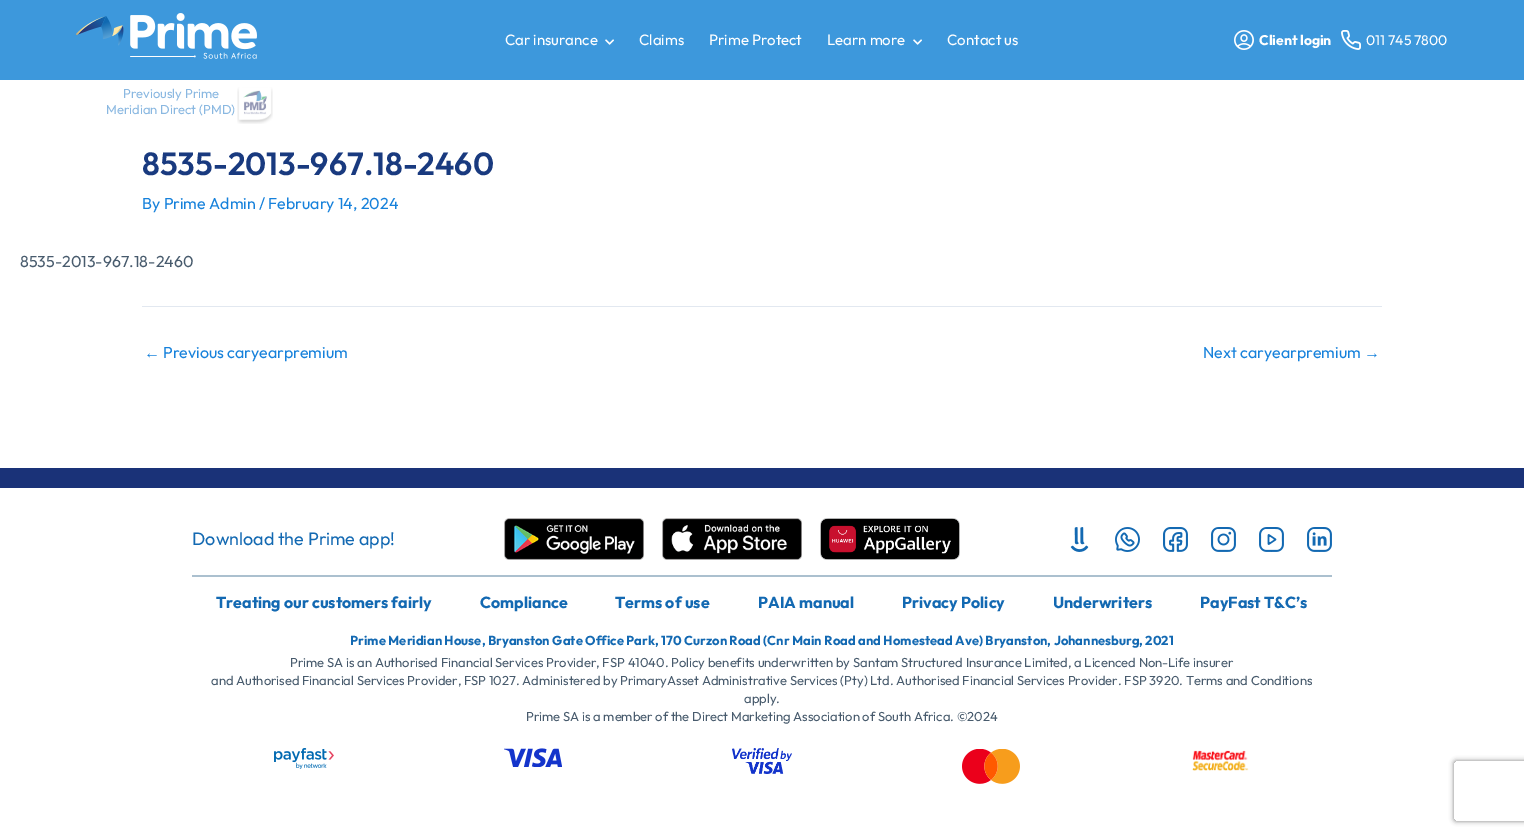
%!PS-Adobe-3.0
%%BoundingBox: 0 0 1524 835
%%LanguageLevel: 3
%%Pages: 1
%%EndComments
%%BeginProlog
/setink { 3 { 255 div 3 1 roll } repeat setrgbcolor } def
/usefont { [ exch dup neg 0 0 3 -1 roll 0 0 ] selectfont } def
/drawtext { setink usefont moveto show } def
/fillbox { setink rectfill } def
/setalpha { dup .setfillconstantalpha .setstrokeconstantalpha } def
/rrect { 5 dict begin { /r /h /w /y /x } { exch def } forall
  x r add y moveto x w add y 2 copy h add r arct x w add y h add x 1 index r arct
  x y h add x y r arct x y 2 copy exch w add exch r arct closepath end } def
/softshadow { 12 dict begin { /a /b /q /h /w /y /x } { exch def } forall gsave /was 0 def
  9 -2 -9 { dup b mul 4 div /e exch def 1 sub .425 mul 2.718 exch exp 1 add a .99 .min exch div /now exch def
    1 1 now sub 1 was sub div sub setalpha /was now def
    w h .min e 2 mul add 0 gt { x e sub y e sub w e 2 mul add h e 2 mul add
      q e add b .6 mul add w h .min 2 div e add .min 0 .max rrect fill } if } for grestore end } def
/drawimage { 5 dict begin { /h /w /y /x /name } { exch def } forall
  gsave x y translate w h scale
  w h 8 [w 0 0 h 0 0] name (r) file false 3 colorimage grestore end } def
%%EndProlog
%%BeginSetup
<< /PageSize [1524 835] /PageUsesTransparency true >> setpagedevice
%%EndSetup
%%Page: 1 1
0 .pushpdf14devicefilter
0 835 translate 1 -1 scale
4 setmiterlimit
0 0 1524 835 255 255 255 fillbox
0 0 1524 80 61 152 220 fillbox
(Car insurance) 505 45 /Outfit-Regular 15 255 255 255 drawtext
(assets/img1.rgb) 605 39 9 6 drawimage
(Claims) 639 45 /Outfit-Regular 15 255 255 255 drawtext
(Prime Protect) 709 45 /Outfit-Regular 15 255 255 255 drawtext
(Learn more) 827 45 /Outfit-Regular 15 255 255 255 drawtext
(assets/img1.rgb) 913 39 9 6 drawimage
(Contact us) 947 45 /Outfit-Regular 15 255 255 255 drawtext
(assets/img2.rgb) 1234 30 20 20 drawimage
(Client login) 1259 45 /Outfit-Bold 14 255 255 255 drawtext
(assets/img3.rgb) 1341 30 20 20 drawimage
(011 745 7800) 1366 45 /Outfit-Regular 14 255 255 255 drawtext
(assets/img4.rgb) 76 13 181 46 drawimage
(Previously Prime) 123 98 /Outfit-Regular 13 138 184 225 drawtext
(assets/img5.rgb) 237 87 36 37 drawimage
(Meridian Direct \(PMD\)) 106 114 /Outfit-Regular 13 138 184 225 drawtext
(8535-2013-967.18-2460) 142 175 /Outfit-SemiBold 32 25 58 127 drawtext
(By Prime Admin / February 14, 2024) 142 209 /Outfit-Regular 16 22 129 219 drawtext
(8535-2013-967.18-2460) 20 267 /Outfit-Regular 16 72 91 109 drawtext
142 306 1240 1 226 232 240 fillbox
(←) 144 358 /LiberationSans-Regular 16 22 129 219 drawtext
(Previous caryearpremium) 163 358 /Outfit-Regular 16 22 129 219 drawtext
(Next caryearpremium) 1203 358 /Outfit-Regular 16 22 129 219 drawtext
(→) 1364 358 /LiberationSans-Regular 16 22 129 219 drawtext
0 468 1524 20 26 50 120 fillbox
192 575 1140 2 171 192 207 fillbox
(Download the Prime app!) 192 545 /Outfit-Regular 18 19 105 178 drawtext
(assets/img6.rgb) 504 518 140 42 drawimage
(assets/img7.rgb) 662 518 140 42 drawimage
(assets/img8.rgb) 820 518 140 42 drawimage
(assets/img9.rgb) 1070 527 19 25 drawimage
(assets/img10.rgb) 1115 527 25 25 drawimage
(assets/img11.rgb) 1163 527 25 25 drawimage
(assets/img12.rgb) 1211 527 25 25 drawimage
(assets/img13.rgb) 1259 527 25 25 drawimage
(assets/img14.rgb) 1307 527 25 25 drawimage
(Treating our customers fairly) 216 608 /Outfit-Bold 16 19 105 178 drawtext
(Compliance) 480 608 /Outfit-Bold 16 19 105 178 drawtext
(Terms of use) 615 608 /Outfit-Bold 16 19 105 178 drawtext
(PAIA manual) 758 608 /Outfit-Bold 16 19 105 178 drawtext
(Privacy Policy) 902 608 /Outfit-Bold 16 19 105 178 drawtext
(Underwriters) 1053 608 /Outfit-Bold 16 19 105 178 drawtext
(PayFast T&C’s) 1200 608 /Outfit-Bold 16 19 105 178 drawtext
(Prime Meridian House, Bryanston Gate Office Park, 170 Curzon Road \(Cnr Main Road and Homestead Ave\) Bryanston, Johannesburg, 2021) 350 645 /Outfit-Bold 13 19 105 178 drawtext
(Prime SA is an Authorised Financial Services Provider, FSP 41040. Policy benefits underwritten by Santam Structured Insurance Limited, a Licenced Non-Life insurer) 290 667 /Outfit-Regular 13 72 91 109 drawtext
(and Authorised Financial Services Provider, FSP 1027. Administered by PrimaryAsset Administrative Services \(Pty\) Ltd. Authorised Financial Services Provider. FSP 3920. Terms and Conditions) 211 685 /Outfit-Regular 13 72 91 109 drawtext
(apply.) 744 703 /Outfit-Regular 13 72 91 109 drawtext
(Prime SA is a member of the Direct Marketing Association of South Africa. ©2024) 526 721 /Outfit-Regular 13 72 91 109 drawtext
(assets/img15.rgb) 274 748 60 21 drawimage
(assets/img16.rgb) 504 748 58 19 drawimage
(assets/img17.rgb) 732 748 60 26 drawimage
(assets/img18.rgb) 962 749 58 35 drawimage
(assets/img19.rgb) 1192 750 57 21 drawimage
gsave
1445 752 moveto 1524 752 lineto 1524 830 lineto 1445 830 lineto closepath 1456 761 moveto 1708 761 lineto 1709 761 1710 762 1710 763 curveto 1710 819 lineto 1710 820 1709 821 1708 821 curveto 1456 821 lineto 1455 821 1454 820 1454 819 curveto 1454 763 lineto 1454 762 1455 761 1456 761 curveto closepath eoclip newpath
128 128 128 setink
1454 761 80 60 2 2.5 1 softshadow
grestore
.poppdf14devicefilter showpage
%%EOF
